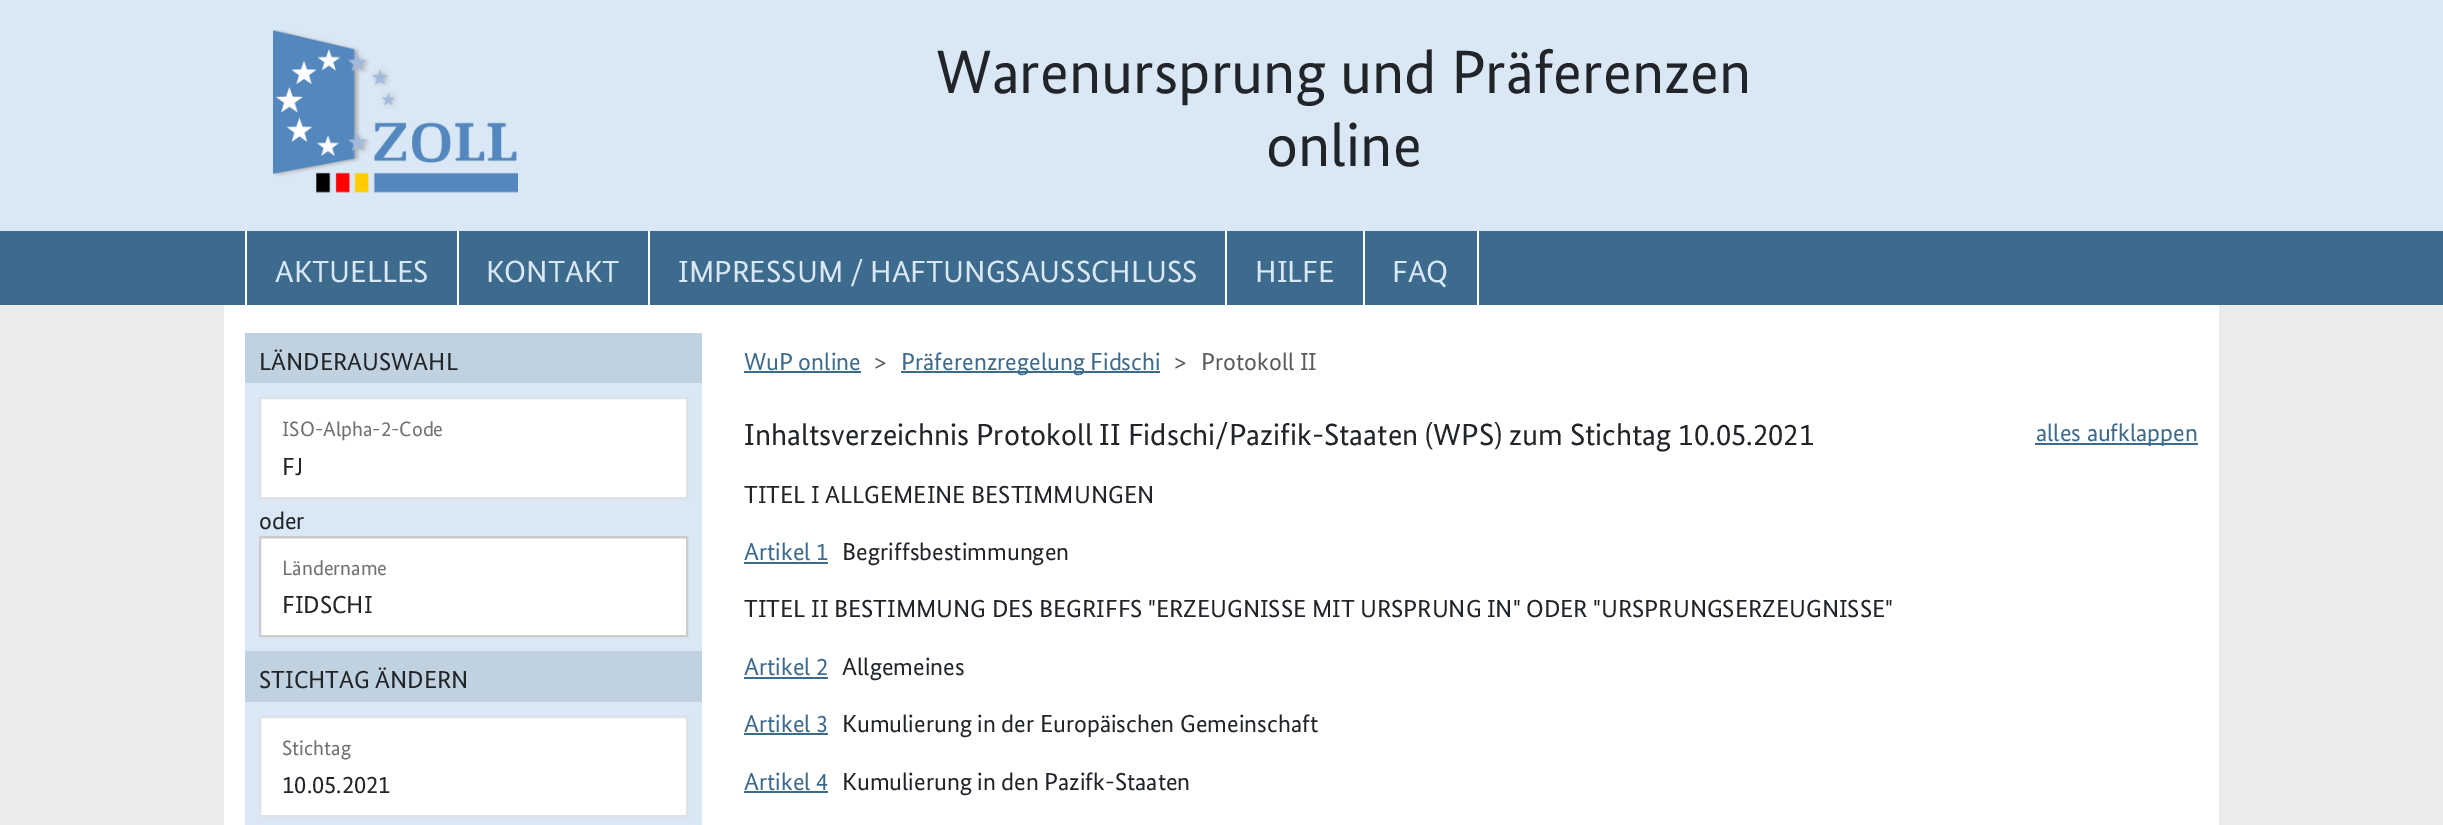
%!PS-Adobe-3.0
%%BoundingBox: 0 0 2443 825
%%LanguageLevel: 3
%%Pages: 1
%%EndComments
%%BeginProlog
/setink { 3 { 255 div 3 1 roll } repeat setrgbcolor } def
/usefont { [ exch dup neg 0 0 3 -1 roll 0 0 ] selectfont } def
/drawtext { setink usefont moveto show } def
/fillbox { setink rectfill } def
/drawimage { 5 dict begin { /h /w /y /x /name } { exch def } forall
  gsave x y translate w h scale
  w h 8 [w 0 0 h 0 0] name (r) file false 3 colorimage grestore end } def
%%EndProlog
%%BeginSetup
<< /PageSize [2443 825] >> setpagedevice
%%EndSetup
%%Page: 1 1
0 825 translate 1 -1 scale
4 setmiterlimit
0 0 2443 825 218 232 245 fillbox
(assets/img1.rgb) 273 29 245 164 drawimage
(Warenursprung und Präferenzen) 936 93 /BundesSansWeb-Regular 61.25 33 37 41 drawtext
(online) 1266 166 /BundesSansWeb-Regular 61.25 33 37 41 drawtext
0 231 2443 74 61 107 141 fillbox
245 231 2 74 255 255 255 fillbox
(AKTUELLES) 275 282 /BundesSansWeb-Regular 30.6 218 232 245 drawtext
457 231 2 74 255 255 255 fillbox
(KONTAKT) 486 282 /BundesSansWeb-Regular 30.6 218 232 245 drawtext
648 231 2 74 255 255 255 fillbox
(IMPRESSUM / HAFTUNGSAUSSCHLUSS) 678 282 /BundesSansWeb-Regular 30.6 218 232 245 drawtext
1225 231 2 74 255 255 255 fillbox
(HILFE) 1255 282 /BundesSansWeb-Regular 30.6 218 232 245 drawtext
1477 231 2 74 255 255 255 fillbox
1363 231 2 74 255 255 255 fillbox
(FAQ) 1392 282 /BundesSansWeb-Regular 30.6 218 232 245 drawtext
0 305 2443 520 235 235 235 fillbox
224 305 1995 520 255 255 255 fillbox
245 383 457 442 218 232 245 fillbox
245 333 457 50 192 210 224 fillbox
(LÄNDERAUSWAHL) 259 370 /BundesSansWeb-Regular 24.5 33 37 41 drawtext
255 255 255 setink
260 398 moveto 687 398 lineto 687 498 lineto 260 498 lineto closepath gsave fill grestore
222 226 230 setink
2 setlinewidth
stroke
(ISO-Alpha-2-Code) 282 436 /BundesSansWeb-Regular 20.75 111 113 116 drawtext
(FJ) 282 475 /BundesSansWeb-Regular 24.5 33 37 41 drawtext
(oder) 259 529 /BundesSansWeb-Regular 24.5 33 37 41 drawtext
261 539 425 96 255 255 255 fillbox
261 538 425 1 236 236 236 fillbox
204 204 204 setink
260 537 427 99 rectstroke
(Ländername) 282 575 /BundesSansWeb-Regular 20.75 111 113 116 drawtext
(FIDSCHI) 282 613 /BundesSansWeb-Regular 24.5 33 37 41 drawtext
245 651 457 51 192 210 224 fillbox
(STICHTAG ÄNDERN) 259 688 /BundesSansWeb-Regular 24.5 33 37 41 drawtext
255 255 255 setink
260 717 moveto 687 717 lineto 687 816 lineto 260 816 lineto closepath gsave fill grestore
222 226 230 setink
stroke
(Stichtag) 282 755 /BundesSansWeb-Regular 20.75 111 113 116 drawtext
(10.05.2021) 282 793 /BundesSansWeb-Regular 24.5 33 37 41 drawtext
(WuP online) 744 370 /BundesSansWeb-Regular 24.5 61 107 141 drawtext
744 371 117 2 61 107 141 fillbox
(>) 874 370 /BundesSansWeb-Regular 24.5 89 92 95 drawtext
901 371 259 2 61 107 141 fillbox
(Präferenzregelung Fidschi) 901 370 /BundesSansWeb-Regular 24.5 61 107 141 drawtext
(>) 1174 370 /BundesSansWeb-Regular 24.5 89 92 95 drawtext
(Protokoll II) 1201 370 /BundesSansWeb-Regular 24.5 89 92 95 drawtext
(Inhaltsverzeichnis Protokoll II Fidschi/Pazifik-Staaten \(WPS\) zum Stichtag 10.05.2021) 744 445 /BundesSansWeb-Regular 30.6 33 37 41 drawtext
2035 443 163 2 61 107 141 fillbox
(alles aufklappen) 2036 441 /BundesSansWeb-Regular 24.5 61 107 141 drawtext
(TITEL I ALLGEMEINE BESTIMMUNGEN) 744 503 /BundesSansWeb-Regular 24.5 33 37 41 drawtext
(Artikel 1) 744 560 /BundesSansWeb-Regular 24.5 61 107 141 drawtext
744 562 84 2 61 107 141 fillbox
(Begriffsbestimmungen) 842 560 /BundesSansWeb-Regular 24.5 33 37 41 drawtext
(TITEL II BESTIMMUNG DES BEGRIFFS "ERZEUGNISSE MIT URSPRUNG IN" ODER "URSPRUNGSERZEUGNISSE") 744 617 /BundesSansWeb-Regular 24.5 33 37 41 drawtext
(Artikel 2) 744 675 /BundesSansWeb-Regular 24.5 61 107 141 drawtext
744 677 84 2 61 107 141 fillbox
(Allgemeines) 842 675 /BundesSansWeb-Regular 24.5 33 37 41 drawtext
(Artikel 3) 744 732 /BundesSansWeb-Regular 24.5 61 107 141 drawtext
744 733 84 2 61 107 141 fillbox
(Kumulierung in der Europäischen Gemeinschaft) 842 732 /BundesSansWeb-Regular 24.5 33 37 41 drawtext
(Artikel 4) 744 790 /BundesSansWeb-Regular 24.5 61 107 141 drawtext
744 791 84 2 61 107 141 fillbox
(Kumulierung in den Pazifk-Staaten) 842 790 /BundesSansWeb-Regular 24.5 33 37 41 drawtext
showpage
%%EOF
